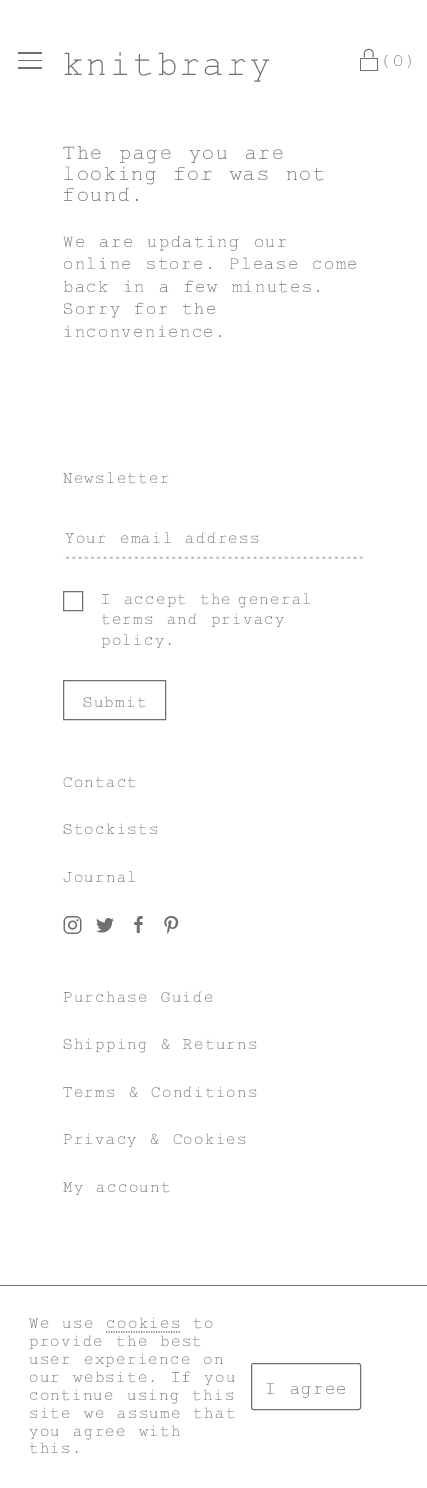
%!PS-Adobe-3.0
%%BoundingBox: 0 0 427 1488
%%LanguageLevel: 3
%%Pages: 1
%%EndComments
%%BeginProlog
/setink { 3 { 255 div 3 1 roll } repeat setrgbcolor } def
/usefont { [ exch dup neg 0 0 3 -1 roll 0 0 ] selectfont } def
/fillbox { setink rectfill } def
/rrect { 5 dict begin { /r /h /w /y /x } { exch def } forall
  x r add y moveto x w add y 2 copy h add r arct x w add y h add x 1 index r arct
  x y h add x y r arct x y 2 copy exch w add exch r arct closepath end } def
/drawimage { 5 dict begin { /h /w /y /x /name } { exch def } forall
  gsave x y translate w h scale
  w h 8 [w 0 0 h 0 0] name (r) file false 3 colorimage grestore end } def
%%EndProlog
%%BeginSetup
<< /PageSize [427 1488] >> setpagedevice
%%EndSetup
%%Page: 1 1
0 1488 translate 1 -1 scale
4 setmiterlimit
0 0 427 1488 255 255 255 fillbox
18 52 24 2 112 112 112 fillbox
18 60 24 1 112 112 112 fillbox
18 67 24 2 112 112 112 fillbox
/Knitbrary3-Regular 30 usefont
63 75 moveto 3 0 (knitbrary) ashow
(assets/img1.rgb) 360 48 18 23 drawimage
/Knitbrary3-Regular 15 usefont
381 66 moveto 1.5 0 (\(0\)) ashow
/Knitbrary3-Regular 17.5 usefont
63 159 moveto 1.75 0 (The page you are) ashow
63 180 moveto 1.75 0 (looking for was not) ashow
63 201 moveto 1.75 0 (found.) ashow
/Knitbrary3-Regular 15 usefont
63 247 moveto 1.5 0 (We are updating our) ashow
63 269 moveto 1.5 0 (online store. Please come) ashow
63 292 moveto 1.5 0 (back in a few minutes.) ashow
63 314 moveto 1.5 0 (Sorry for the) ashow
63 337 moveto 1.5 0 (inconvenience.) ashow
/Knitbrary3-Regular 13.75 usefont
63 483 moveto 1.4 0 (Newsletter) ashow
65 543 moveto 1.4 0 (Your email address) ashow
(assets/img2.rgb) 62 556 302 3 drawimage
63.5 591.5 19 19 rectstroke
101 604 moveto 1.4 0 (I accept the) ashow
238 604 moveto 1.4 0 (general) ashow
101 624 moveto 1.4 0 (terms and privacy) ashow
101 645 moveto 1.4 0 (policy.) ashow
63.5 680.5 102 39 rectstroke
83 707 moveto 1.4 0 (Submit) ashow
63 787 moveto 1.4 0 (Contact) ashow
63 834 moveto 1.4 0 (Stockists) ashow
63 882 moveto 1.4 0 (Journal) ashow
(assets/img3.rgb) 63 916 19 18 drawimage
(assets/img4.rgb) 96 918 18 15 drawimage
(assets/img5.rgb) 134 916 9 17 drawimage
(assets/img6.rgb) 164 916 15 18 drawimage
63 1002 moveto 1.4 0 (Purchase Guide) ashow
63 1049 moveto 1.4 0 (Shipping & Returns) ashow
63 1097 moveto 1.4 0 (Terms & Conditions) ashow
63 1144 moveto 1.4 0 (Privacy & Cookies) ashow
63 1192 moveto 1.4 0 (My account) ashow
0 1285 427 1 112 112 112 fillbox
29 1328 moveto 1.4 0 (We use cookies to) ashow
1.2 setlinewidth
[1.25 1.25] 0 setdash
106 1332 moveto 181 1332 lineto stroke
29 1346 moveto 1.4 0 (provide the best) ashow
29 1364 moveto 1.4 0 (user experience on) ashow
29 1382 moveto 1.4 0 (our website. If you) ashow
29 1400 moveto 1.4 0 (continue using this) ashow
29 1418 moveto 1.4 0 (site we assume that) ashow
29 1436 moveto 1.4 0 (you agree with) ashow
29 1453 moveto 1.4 0 (this.) ashow
1 setlinewidth
[] 0 setdash
251.5 1363.5 109 46 2 rrect stroke
/Knitbrary3-Regular 15 usefont
265 1394 moveto 1.5 0 (I agree) ashow
showpage
%%EOF
